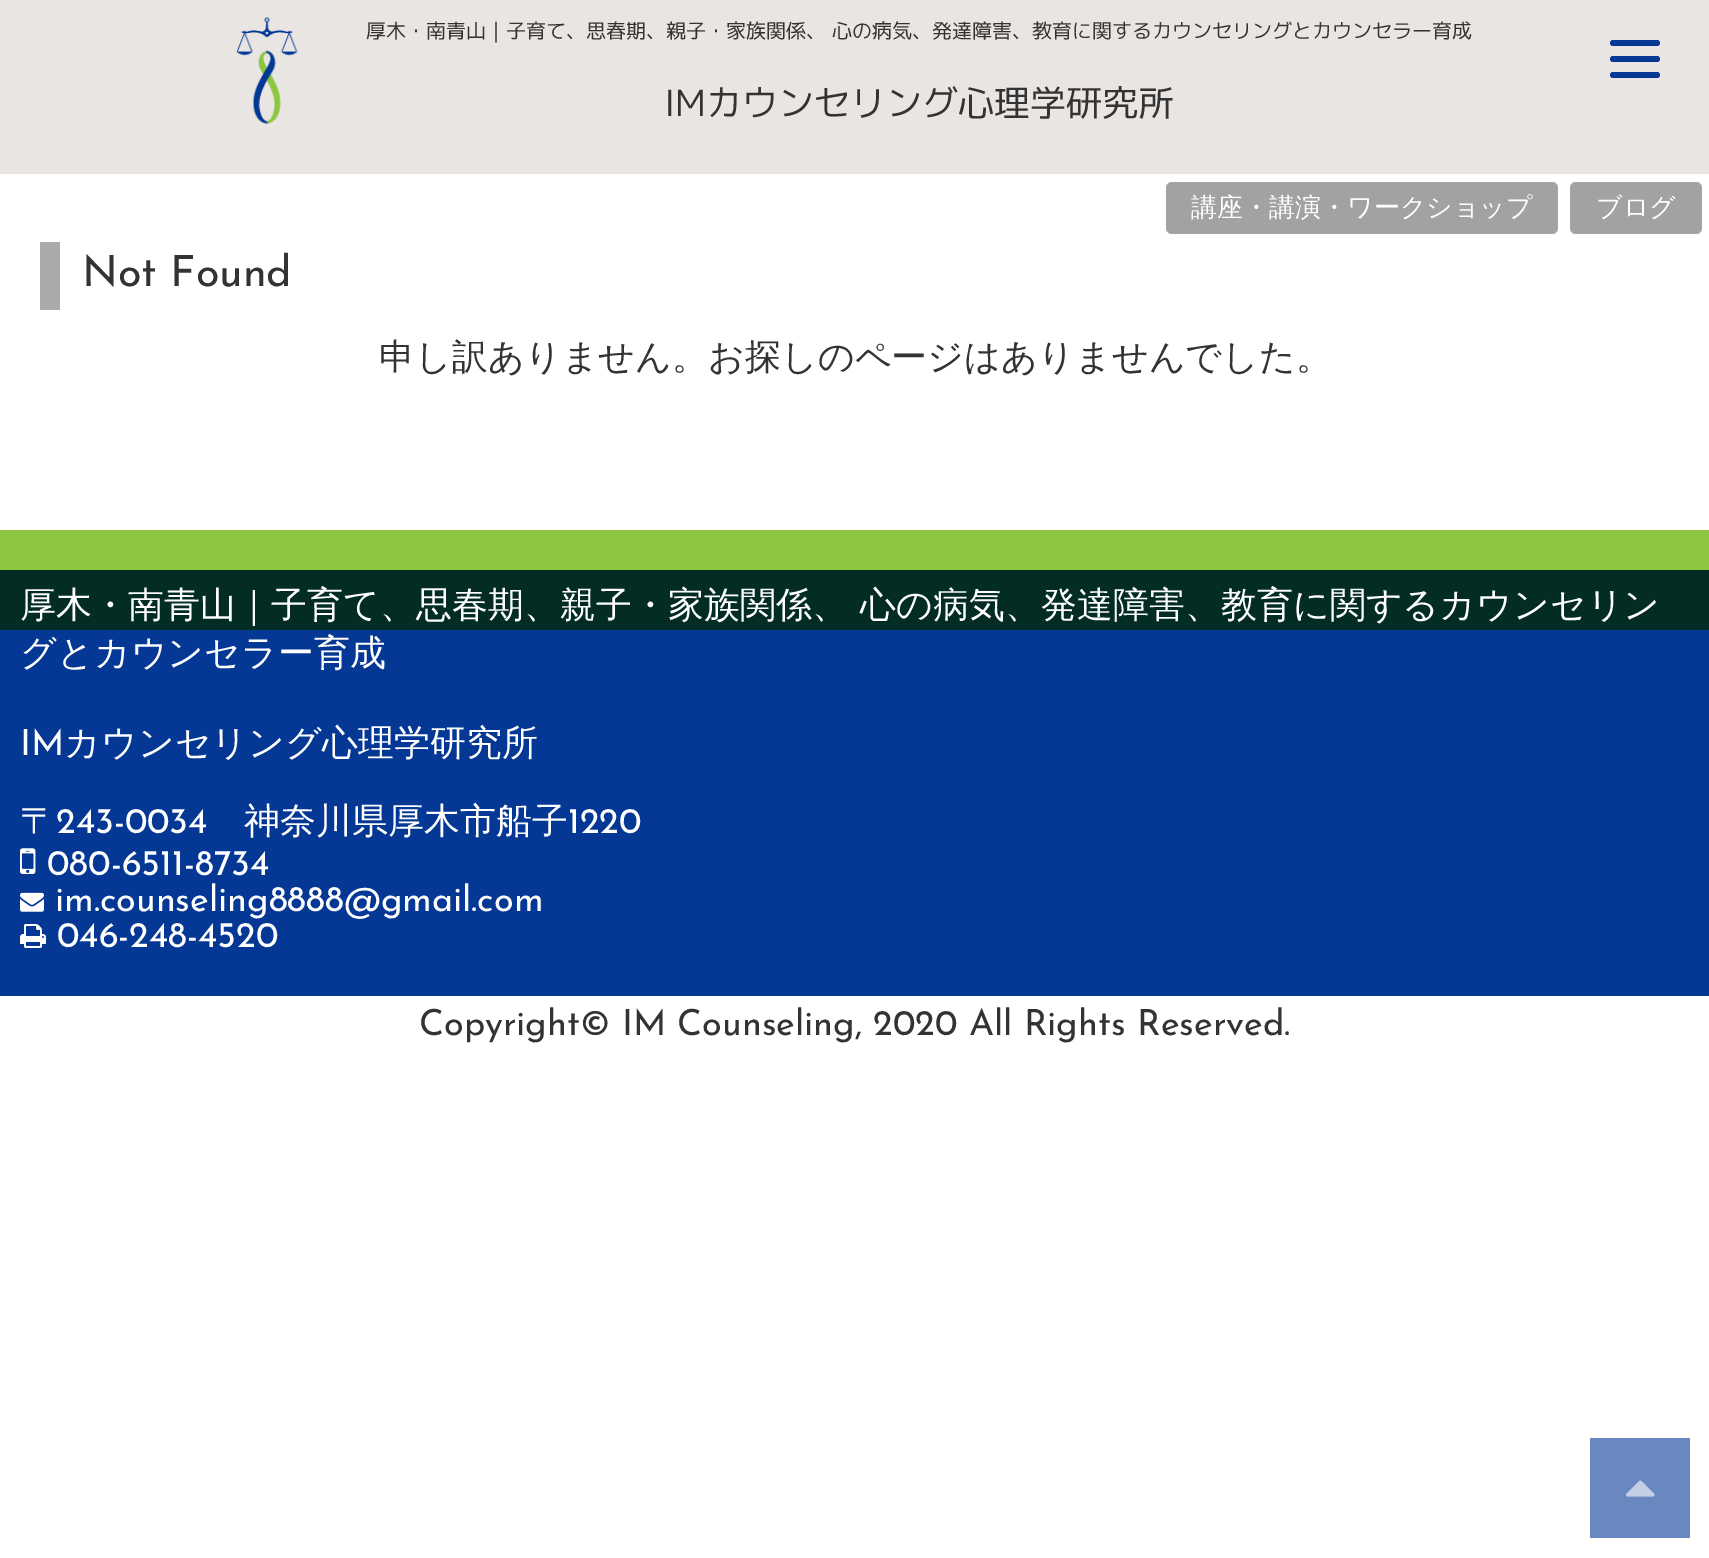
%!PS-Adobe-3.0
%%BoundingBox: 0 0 1709 1558
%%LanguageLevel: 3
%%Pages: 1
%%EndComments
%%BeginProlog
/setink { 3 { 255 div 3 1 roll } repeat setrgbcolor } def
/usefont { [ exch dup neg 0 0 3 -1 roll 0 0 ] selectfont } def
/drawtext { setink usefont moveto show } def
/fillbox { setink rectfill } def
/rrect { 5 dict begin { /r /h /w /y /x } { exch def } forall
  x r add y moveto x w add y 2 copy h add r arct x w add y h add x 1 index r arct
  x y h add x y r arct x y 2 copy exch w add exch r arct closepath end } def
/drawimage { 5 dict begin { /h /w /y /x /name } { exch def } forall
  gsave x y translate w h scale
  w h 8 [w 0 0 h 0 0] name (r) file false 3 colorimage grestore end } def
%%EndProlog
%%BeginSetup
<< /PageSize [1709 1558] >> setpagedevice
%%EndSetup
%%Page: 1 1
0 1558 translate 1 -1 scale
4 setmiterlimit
0 0 1709 1558 255 255 255 fillbox
0 0 1709 174 233 229 226 fillbox
(assets/img1.rgb) 236 17 62 107 drawimage
(厚木・南青山｜子育て、思春期、親子・家族関係、 心の病気、発達障害、教育に関するカウンセリングとカウンセラー育成) 366 38 /MPLUS1p-Regular 20 51 51 51 drawtext
(IMカウンセリング心理学研究所) 664 116 /MPLUS1p-Regular 36 51 51 51 drawtext
5 56 148 setink
1610 40 50 6 3 rrect fill
1610 56 50 6 3 rrect fill
1610 72 50 6 3 rrect fill
162 162 162 setink
1166 182 392 52 6 rrect fill
(講座・講演・ワークショップ) 1191 216 /WenQuanYiZenHei-Medium 26 255 255 255 drawtext
162 162 162 setink
1570 182 132 52 6 rrect fill
(ブログ) 1596 216 /WenQuanYiZenHei-Medium 26 255 255 255 drawtext
40 242 20 68 170 170 170 fillbox
(Not Found) 82 286 /JosefinSans-Regular 43 51 51 51 drawtext
(申し訳ありません。お探しのページはありませんでした。) 379 369 /WenQuanYiZenHei-Medium 36 51 51 51 drawtext
0 630 1709 366 5 56 148 fillbox
0 530 1709 40 140 198 63 fillbox
0 570 1709 60 3 44 37 fillbox
255 255 255 setink
20 617 moveto 1 0 32 (厚木・南青山｜子育て、思春期、親子・家族関係、 心の病気、発達障害、教育に関するカウンセリン) widthshow
(グとカウンセラー育成) 20 665 /WenQuanYiZenHei-Medium 36 255 255 255 drawtext
(IM) 20 755 /JosefinSans-Regular 36 255 255 255 drawtext
(カウンセリング心理学研究所) 64 755 /WenQuanYiZenHei-Medium 36 255 255 255 drawtext
(〒) 20 833 /WenQuanYiZenHei-Medium 36 255 255 255 drawtext
(243-0034) 56 833 /JosefinSans-Regular 36 255 255 255 drawtext
(神奈川県厚木市船子) 244 833 /WenQuanYiZenHei-Medium 36 255 255 255 drawtext
(1220) 568 833 /JosefinSans-Regular 36 255 255 255 drawtext
(assets/img2.rgb) 20 848 16 26 drawimage
(080-6511-8734) 47 875 /JosefinSans-Regular 36 255 255 255 drawtext
(assets/img3.rgb) 20 892 24 20 drawimage
(im.counseling8888@gmail.com) 55 911 /JosefinSans-Regular 36 255 255 255 drawtext
(assets/img4.rgb) 20 924 26 24 drawimage
(046-248-4520) 57 947 /JosefinSans-Regular 36 255 255 255 drawtext
(Copyright© IM Counseling, 2020 All Rights Reserved.) 419 1035 /JosefinSans-Regular 36 51 51 51 drawtext
1590 1438 100 100 105 136 191 fillbox
(assets/img5.rgb) 1626 1480 29 17 drawimage
showpage
%%EOF
